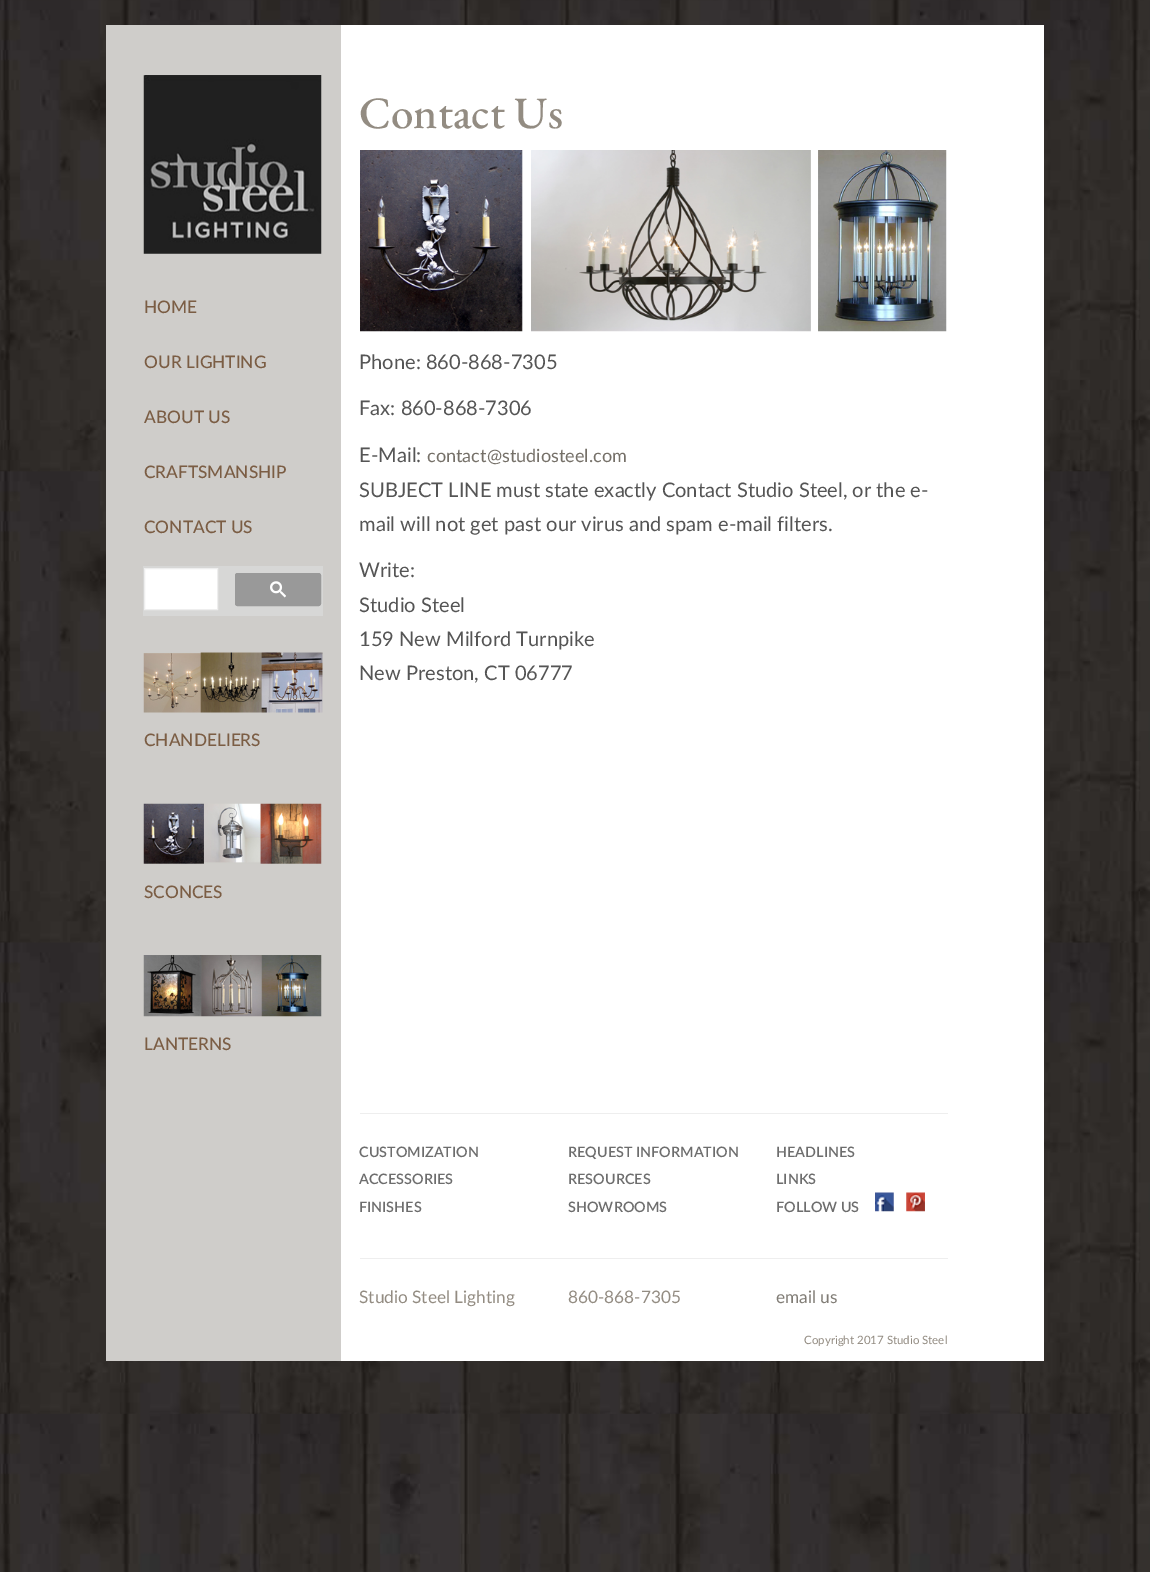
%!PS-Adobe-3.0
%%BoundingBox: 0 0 1150 1572
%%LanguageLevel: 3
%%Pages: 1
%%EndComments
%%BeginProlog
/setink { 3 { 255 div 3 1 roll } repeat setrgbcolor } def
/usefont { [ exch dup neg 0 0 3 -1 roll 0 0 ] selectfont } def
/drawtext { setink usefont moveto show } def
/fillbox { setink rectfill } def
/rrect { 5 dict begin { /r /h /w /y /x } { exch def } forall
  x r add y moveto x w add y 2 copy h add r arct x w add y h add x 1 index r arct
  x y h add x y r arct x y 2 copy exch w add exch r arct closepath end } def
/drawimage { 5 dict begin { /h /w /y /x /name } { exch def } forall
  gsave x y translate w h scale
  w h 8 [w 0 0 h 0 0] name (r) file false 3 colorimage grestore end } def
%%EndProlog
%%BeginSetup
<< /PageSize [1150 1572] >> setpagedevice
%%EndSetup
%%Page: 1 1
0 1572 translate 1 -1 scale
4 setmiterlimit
0 0 1150 1572 255 255 255 fillbox
(assets/img1.rgb) 0 0 1150 1572 drawimage
341 25 703 1336 255 255 255 fillbox
106 25 235 1336 207 205 202 fillbox
(assets/img2.rgb) 143 75 179 179 drawimage
(HOME) 144 313 /Lato-Medium 17.25 123 93 68 drawtext
(OUR LIGHTING) 144 368 /Lato-Medium 17.25 123 93 68 drawtext
(ABOUT US) 144 423 /Lato-Medium 17.25 123 93 68 drawtext
(CRAFTSMANSHIP) 144 478 /Lato-Medium 17.25 123 93 68 drawtext
(CONTACT US) 144 533 /Lato-Medium 17.25 123 93 68 drawtext
143 566 180 50 215 215 214 fillbox
255 255 255 setink
144.5 568.5 moveto 217.5 568.5 lineto 217.5 609.5 lineto 144.5 609.5 lineto closepath gsave fill grestore
238 238 238 setink
stroke
153 153 153 setink
235.5 573.5 85 32 2 rrect gsave fill grestore
stroke
(assets/img3.rgb) 270 581 16 17 drawimage
(assets/img4.rgb) 143 652 180 61 drawimage
(CHANDELIERS) 144 746 /Lato-Medium 17.25 123 93 68 drawtext
(assets/img5.rgb) 143 803 179 61 drawimage
(SCONCES) 144 898 /Lato-Medium 17.25 123 93 68 drawtext
(assets/img6.rgb) 143 955 179 62 drawimage
(LANTERNS) 144 1050 /Lato-Medium 17.25 123 93 68 drawtext
(Contact Us) 359 128 /EBGaramond-Medium 45 147 140 130 drawtext
(assets/img7.rgb) 360 150 587 182 drawimage
(Phone: 860-868-7305) 359 369 /Lato-Regular 20.1 85 85 85 drawtext
(Fax: 860-868-7306) 359 415 /Lato-Regular 20.1 85 85 85 drawtext
(E-Mail:) 359 462 /Lato-Regular 20.1 85 85 85 drawtext
(contact@studiosteel.com) 427 462 /Lato-Regular 18.1 117 112 104 drawtext
(SUBJECT LINE must state exactly Contact Studio Steel, or the e-) 359 497 /Lato-Regular 20.1 85 85 85 drawtext
(mail will not get past our virus and spam e-mail filters.) 359 531 /Lato-Regular 20.1 85 85 85 drawtext
(Write:) 359 577 /Lato-Regular 20.1 85 85 85 drawtext
(Studio Steel) 359 612 /Lato-Regular 20.1 85 85 85 drawtext
(159 New Milford Turnpike) 359 646 /Lato-Regular 20.1 85 85 85 drawtext
(New Preston, CT 06777) 359 680 /Lato-Regular 20.1 85 85 85 drawtext
360 1113 588 1 238 238 238 fillbox
(CUSTOMIZATION) 359 1157 /Lato-SemiBold 14.4 109 109 109 drawtext
(ACCESSORIES) 359 1184 /Lato-SemiBold 14.4 109 109 109 drawtext
(FINISHES) 359 1212 /Lato-SemiBold 14.4 109 109 109 drawtext
(REQUEST INFORMATION) 568 1157 /Lato-SemiBold 14.4 109 109 109 drawtext
(RESOURCES) 568 1184 /Lato-SemiBold 14.4 109 109 109 drawtext
(SHOWROOMS) 568 1212 /Lato-SemiBold 14.4 109 109 109 drawtext
(HEADLINES) 776 1157 /Lato-SemiBold 14.4 109 109 109 drawtext
(LINKS) 776 1184 /Lato-SemiBold 14.4 109 109 109 drawtext
(FOLLOW US) 776 1212 /Lato-SemiBold 14.4 109 109 109 drawtext
(assets/img8.rgb) 875 1192 19 20 drawimage
(assets/img9.rgb) 906 1192 19 20 drawimage
360 1258 588 1 238 238 238 fillbox
(Studio Steel Lighting) 359 1303 /Lato-Regular 17.25 147 140 130 drawtext
(860-868-7305) 568 1303 /Lato-Regular 17.25 147 140 130 drawtext
(email us) 776 1303 /Lato-Regular 17.25 128 124 117 drawtext
(Copyright 2017 Studio Steel) 804 1344 /Lato-Regular 11.5 147 140 130 drawtext
showpage
%%EOF
